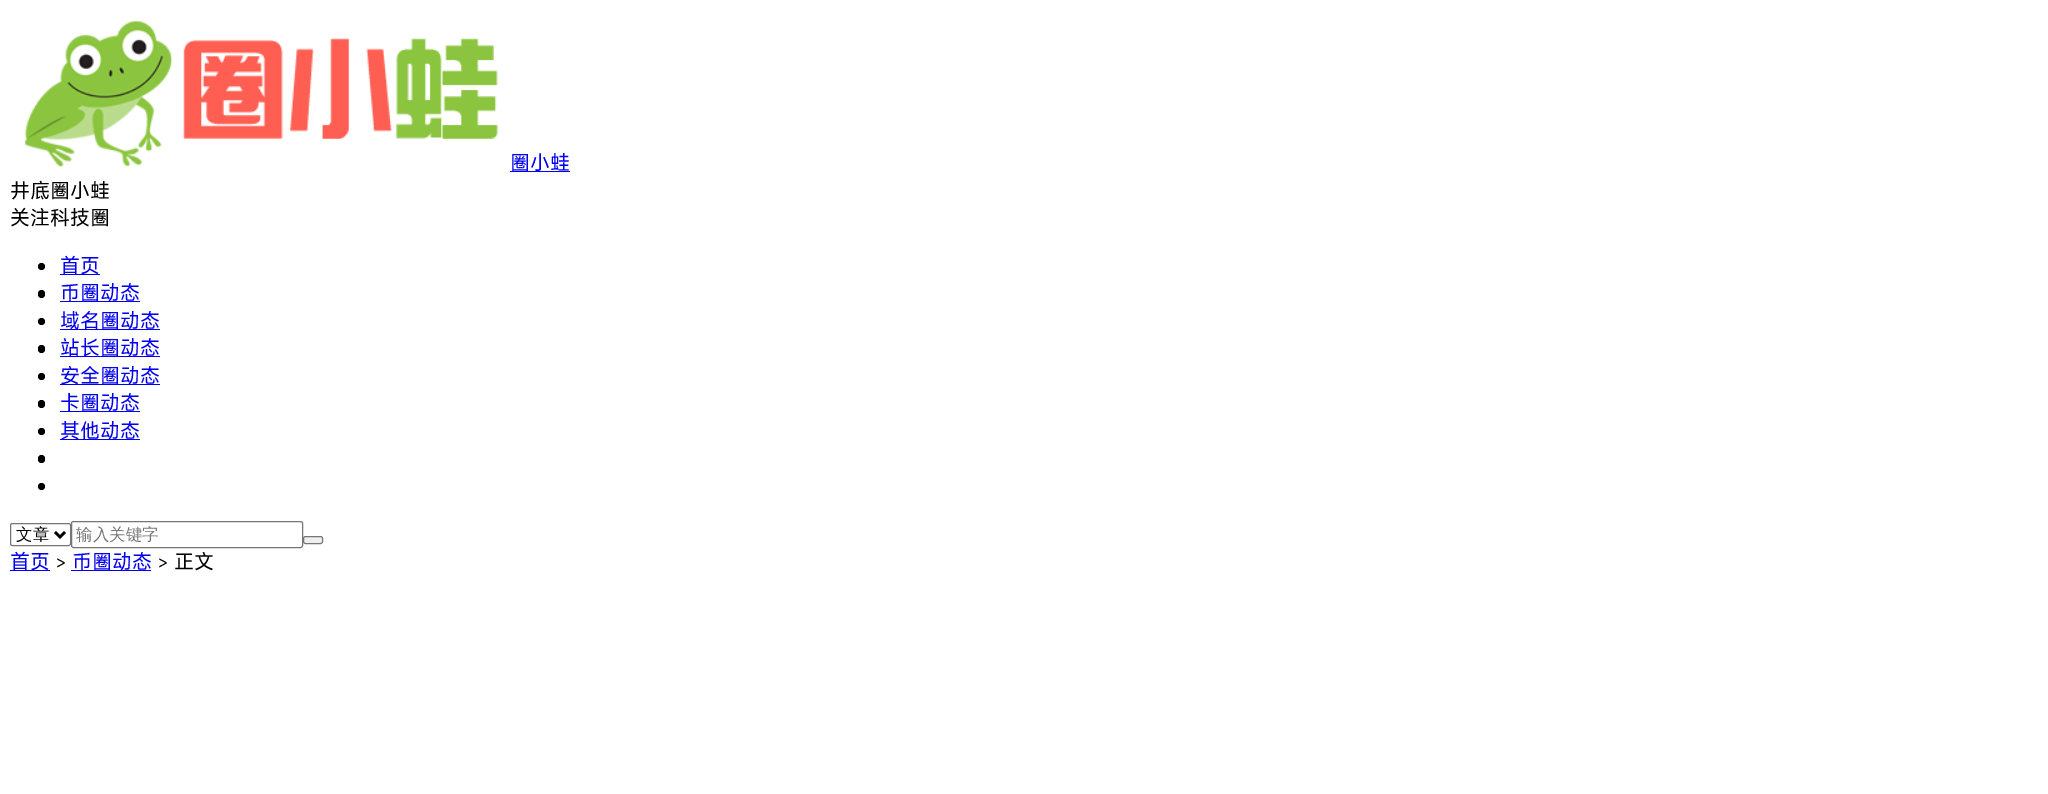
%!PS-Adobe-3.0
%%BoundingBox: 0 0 2048 794
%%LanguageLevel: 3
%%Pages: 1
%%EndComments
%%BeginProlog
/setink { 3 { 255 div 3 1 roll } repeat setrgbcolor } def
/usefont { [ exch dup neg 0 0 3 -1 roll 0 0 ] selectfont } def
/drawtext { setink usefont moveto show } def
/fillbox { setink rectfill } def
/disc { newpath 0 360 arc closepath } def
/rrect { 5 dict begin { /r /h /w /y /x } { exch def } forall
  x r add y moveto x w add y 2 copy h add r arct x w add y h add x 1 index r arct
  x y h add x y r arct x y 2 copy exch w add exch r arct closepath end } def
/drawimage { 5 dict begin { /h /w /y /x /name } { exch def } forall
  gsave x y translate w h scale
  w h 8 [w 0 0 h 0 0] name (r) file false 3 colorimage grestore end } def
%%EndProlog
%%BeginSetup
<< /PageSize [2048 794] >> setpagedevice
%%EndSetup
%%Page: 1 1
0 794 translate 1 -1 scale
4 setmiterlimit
0 0 2048 794 255 255 255 fillbox
(assets/img1.rgb) 24 21 474 146 drawimage
510 171 60 1 0 0 238 fillbox
(圈小蛙) 510 170 /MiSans-Regular 20 0 0 238 drawtext
(井底圈小蛙) 10 198 /MiSans-Regular 20 0 0 0 drawtext
(关注科技圈) 10 225 /MiSans-Regular 20 0 0 0 drawtext
41.5 266.5 3.5 disc fill
60 274 40 1 0 0 238 fillbox
(首页) 60 273 /MiSans-Regular 20 0 0 238 drawtext
0 0 0 setink
38 290 7 8 3.5 rrect fill
60 301 80 1 0 0 238 fillbox
(币圈动态) 60 300 /MiSans-Regular 20 0 0 238 drawtext
0 0 0 setink
41.5 321.5 3.5 disc fill
60 329 100 1 0 0 238 fillbox
(域名圈动态) 60 328 /MiSans-Regular 20 0 0 238 drawtext
0 0 0 setink
38 345 7 8 3.5 rrect fill
60 356 100 1 0 0 238 fillbox
(站长圈动态) 60 355 /MiSans-Regular 20 0 0 238 drawtext
0 0 0 setink
41.5 376.5 3.5 disc fill
60 384 100 1 0 0 238 fillbox
(安全圈动态) 60 383 /MiSans-Regular 20 0 0 238 drawtext
0 0 0 setink
38 400 7 8 3.5 rrect fill
60 411 80 1 0 0 238 fillbox
(卡圈动态) 60 410 /MiSans-Regular 20 0 0 238 drawtext
0 0 0 setink
41.5 431.5 3.5 disc fill
60 439 80 1 0 0 238 fillbox
(其他动态) 60 438 /MiSans-Regular 20 0 0 238 drawtext
0 0 0 setink
38 455 7 8 3.5 rrect fill
41.5 486.5 3.5 disc fill
118 118 118 setink
10.5 523.5 60 22 2 rrect stroke
0 0 0 setink
2.5 setlinewidth
55 532 moveto 60 537 lineto 65 532 lineto stroke
(文章) 16 540 /WenQuanYiZenHei-Medium 16.5 0 0 0 drawtext
118 118 118 setink
1 setlinewidth
71.5 521.5 231 26 2 rrect stroke
(输入关键字) 76 540 /WenQuanYiZenHei-Medium 16.5 117 117 117 drawtext
239 239 239 setink
303.5 536.5 19 7 2 rrect gsave fill grestore
118 118 118 setink
stroke
10 570 40 1 0 0 238 fillbox
(首页) 10 569 /MiSans-Regular 20 0 0 238 drawtext
(>) 56 569 /MiSans-Regular 16.5 0 0 0 drawtext
71 570 80 1 0 0 238 fillbox
(币圈动态) 72 569 /MiSans-Regular 20 0 0 238 drawtext
(>) 158 569 /MiSans-Regular 16.5 0 0 0 drawtext
(正文) 174 569 /MiSans-Regular 20 0 0 0 drawtext
showpage
%%EOF
